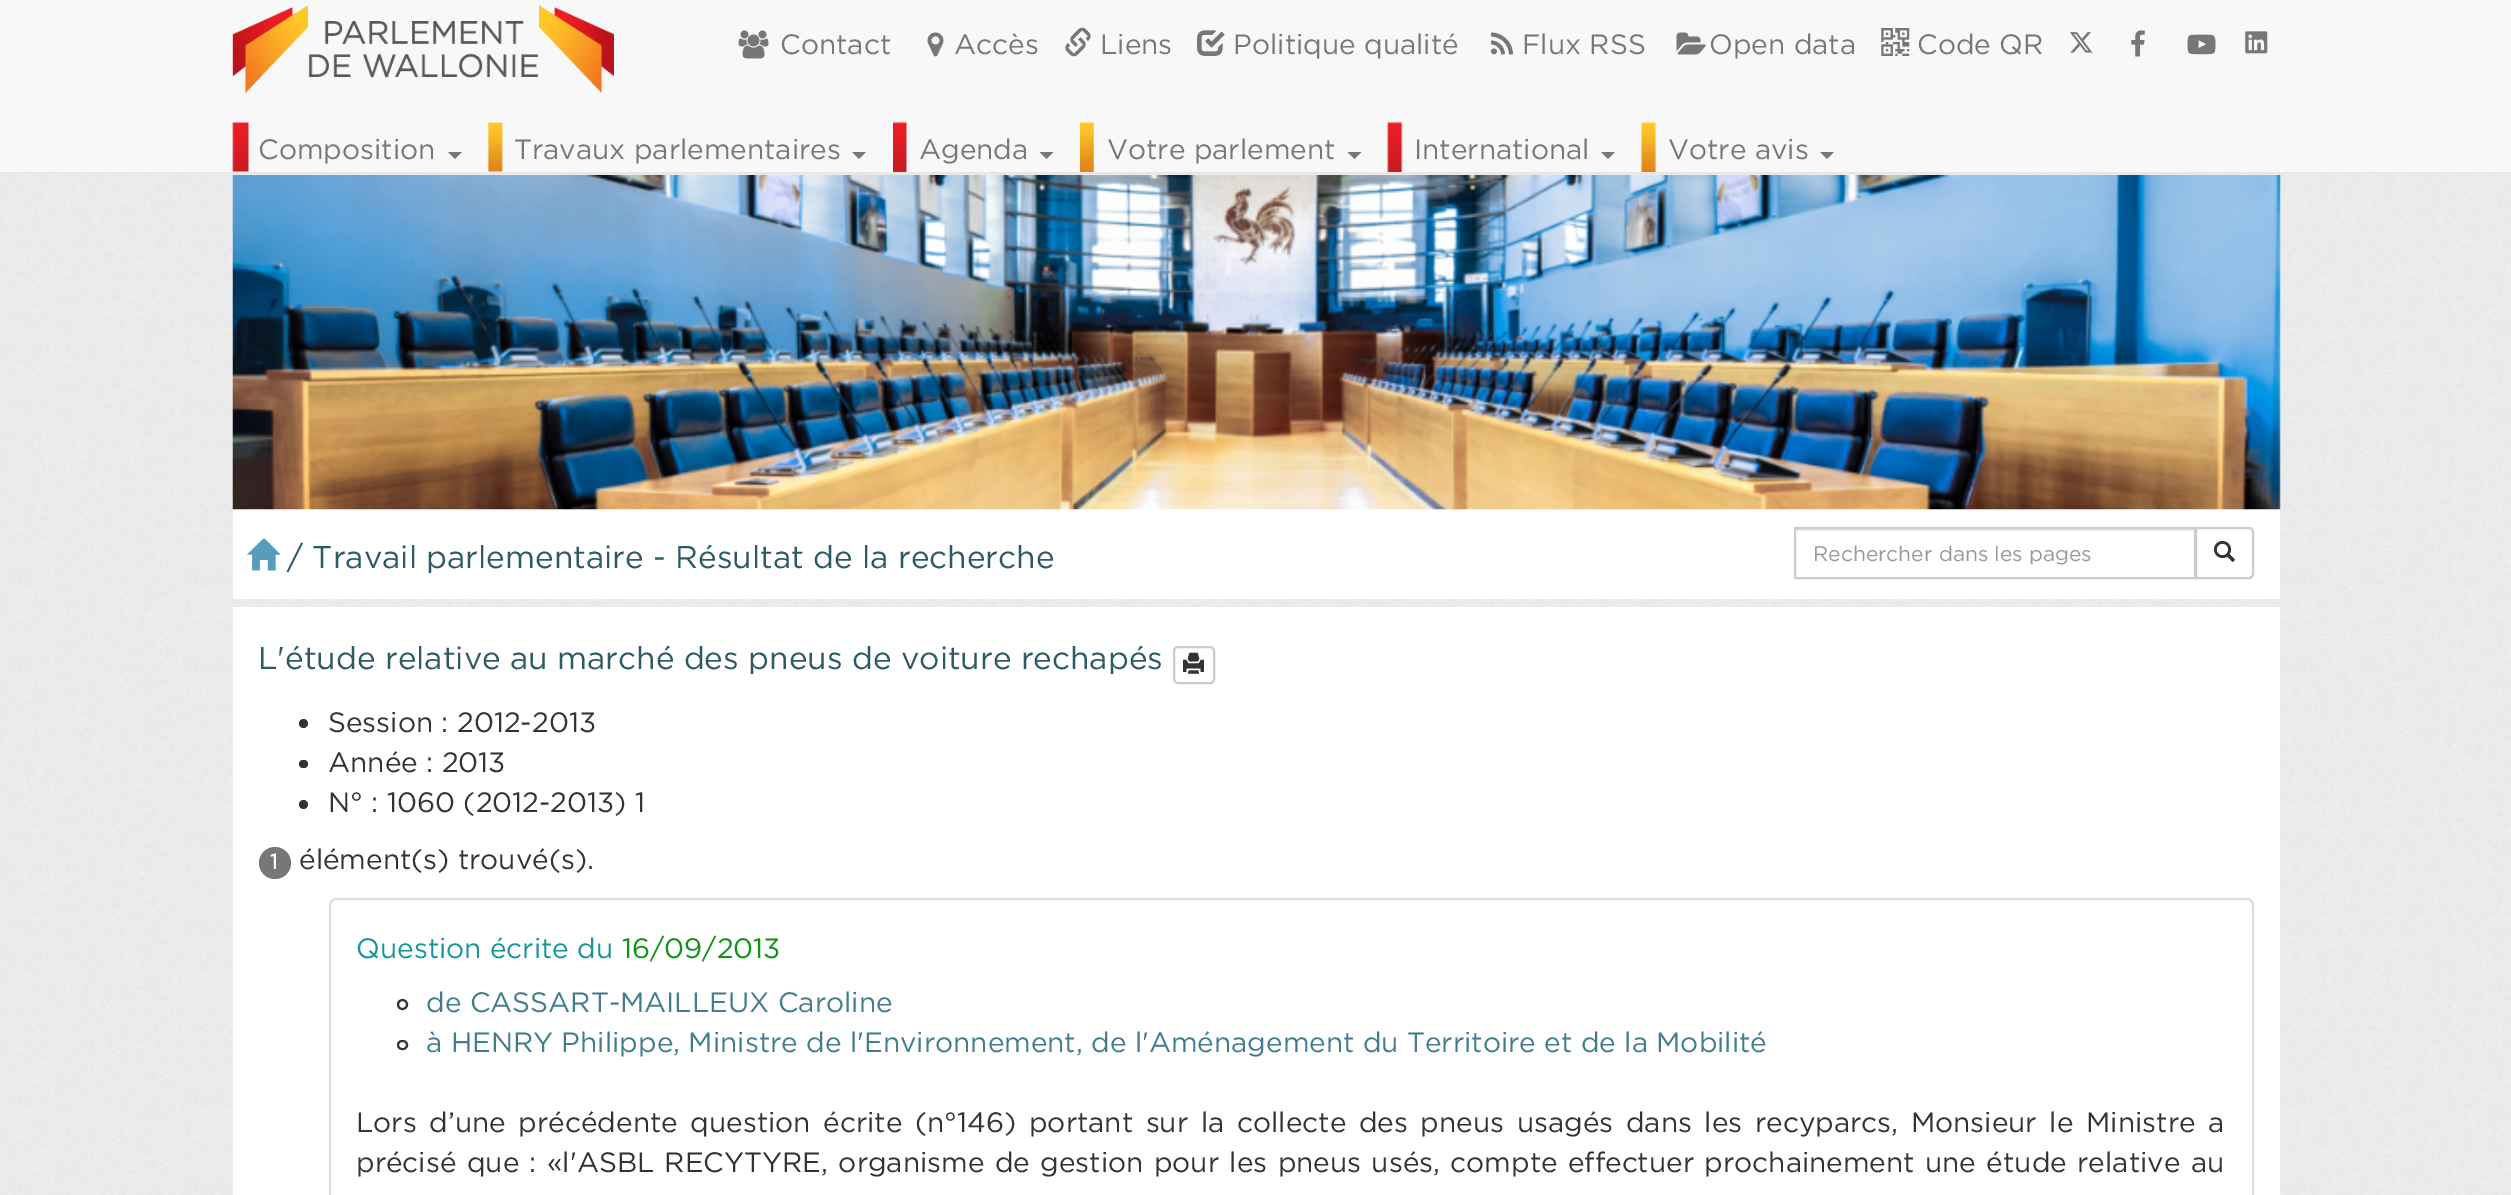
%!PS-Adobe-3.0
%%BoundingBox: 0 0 2511 1195
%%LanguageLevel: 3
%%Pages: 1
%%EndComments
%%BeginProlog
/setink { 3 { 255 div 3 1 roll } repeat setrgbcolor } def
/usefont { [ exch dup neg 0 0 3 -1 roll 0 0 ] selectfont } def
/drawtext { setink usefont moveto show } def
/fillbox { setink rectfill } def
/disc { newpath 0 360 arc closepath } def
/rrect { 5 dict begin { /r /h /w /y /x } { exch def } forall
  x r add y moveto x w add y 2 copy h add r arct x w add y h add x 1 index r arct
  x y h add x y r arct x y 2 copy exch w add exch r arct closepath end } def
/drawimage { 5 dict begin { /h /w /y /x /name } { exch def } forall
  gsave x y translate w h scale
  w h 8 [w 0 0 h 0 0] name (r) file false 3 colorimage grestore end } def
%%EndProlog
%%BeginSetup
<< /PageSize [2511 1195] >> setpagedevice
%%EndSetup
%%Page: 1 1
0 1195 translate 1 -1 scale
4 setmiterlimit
0 0 2511 1195 255 255 255 fillbox
(assets/img1.rgb) 0 174 2511 1021 drawimage
0 0 2511 172 248 248 248 fillbox
0 172 2511 2 231 231 231 fillbox
(assets/img2.rgb) 232 5 382 88 drawimage
(assets/img3.rgb) 738 30 31 29 drawimage
(Contact) 780 54 /Gotham-Regular 28 119 119 119 drawtext
(assets/img4.rgb) 927 32 17 25 drawimage
(Accès) 954 54 /Gotham-Regular 28 119 119 119 drawtext
(assets/img5.rgb) 1065 27 26 30 drawimage
(Liens) 1100 54 /Gotham-Regular 28 119 119 119 drawtext
(assets/img6.rgb) 1197 30 28 26 drawimage
(Politique qualité) 1233 54 /Gotham-Regular 28 119 119 119 drawtext
(assets/img7.rgb) 1491 32 22 23 drawimage
(Flux RSS) 1522 54 /Gotham-Regular 28 119 119 119 drawtext
(assets/img8.rgb) 1676 32 30 23 drawimage
(Open data) 1709 54 /Gotham-Regular 28 119 119 119 drawtext
(assets/img9.rgb) 1881 28 29 28 drawimage
(Code QR) 1917 54 /Gotham-Regular 28 119 119 119 drawtext
(assets/img10.rgb) 2070 32 23 21 drawimage
(assets/img11.rgb) 2131 30 14 27 drawimage
(assets/img12.rgb) 2187 34 29 21 drawimage
(assets/img13.rgb) 2245 31 23 23 drawimage
(assets/img14.rgb) 232 122 17 50 drawimage
(Composition) 258 159 /Gotham-Regular 28 119 119 119 drawtext
448 152 moveto 462 152 lineto 455 159 lineto closepath fill
(assets/img15.rgb) 487 122 16 50 drawimage
(Travaux parlementaires) 514 159 /Gotham-Regular 28 119 119 119 drawtext
852 152 moveto 866 152 lineto 859 159 lineto closepath fill
(assets/img16.rgb) 893 121 14 51 drawimage
(Agenda) 919 159 /Gotham-Regular 28 119 119 119 drawtext
1039.5 152 moveto 1053.5 152 lineto 1046.5 159 lineto closepath fill
(assets/img17.rgb) 1080 121 14 51 drawimage
(Votre parlement) 1107 159 /Gotham-Regular 28 119 119 119 drawtext
1347.5 152 moveto 1361.5 152 lineto 1354.5 159 lineto closepath fill
(assets/img18.rgb) 1387 121 16 51 drawimage
(International) 1414 159 /Gotham-Regular 28 119 119 119 drawtext
1601 152 moveto 1615 152 lineto 1608 159 lineto closepath fill
(assets/img19.rgb) 1640 121 16 51 drawimage
(Votre avis) 1668 159 /Gotham-Regular 28 119 119 119 drawtext
1820 152 moveto 1834 152 lineto 1827 159 lineto closepath fill
233 509 2047 90 255 255 255 fillbox
(assets/img20.rgb) 232 175 2049 335 drawimage
(assets/img21.rgb) 247 538 34 33 drawimage
(/ Travail parlementaire - Résultat de la recherche) 287 568 /Gotham-Regular 31.5 46 90 101 drawtext
1796 529 399 2 236 236 236 fillbox
204 204 204 setink
2 setlinewidth
2196 528 moveto 2249 528 lineto 2251 528 2253 530 2253 532 curveto 2253 574 lineto 2253 576 2251 578 2249 578 curveto 2196 578 lineto closepath stroke
1795 528 400 50 rectstroke
(Rechercher dans les pages) 1813 561 /Gotham-Regular 21 153 153 153 drawtext
(assets/img22.rgb) 2213 540 22 22 drawimage
233 607 2047 588 255 255 255 fillbox
(L'étude relative au marché des pneus de voiture rechapés) 258 669 /Gotham-Regular 31.5 46 90 101 drawtext
204 204 204 setink
1174 647 40 36 4 rrect stroke
(assets/img23.rgb) 1183 652 21 22 drawimage
51 51 51 setink
303.5 723.5 4.5 disc fill
(Session : 2012-2013) 328 732 /Gotham-Regular 28 51 51 51 drawtext
299 760 9 8 4 rrect fill
(Année : 2013) 328 772 /Gotham-Regular 28 51 51 51 drawtext
303.5 804.5 4.5 disc fill
(N° : 1060 \(2012-2013\) 1) 328 812 /Gotham-Regular 28 51 51 51 drawtext
119 119 119 setink
275 863 16 disc fill
(1) 270 869 /Gotham-Bold 21 255 255 255 drawtext
(élément\(s\) trouvé\(s\).) 299 869 /Gotham-Regular 28 51 51 51 drawtext
221 221 221 setink
330 899 1923 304 6 rrect stroke
(Question écrite du) 356 958 /Gotham-Regular 28 24 148 157 drawtext
(16/09/2013) 622 958 /Gotham-Regular 28 13 147 21 drawtext
51 51 51 setink
402.5 1004.5 4.5 disc stroke
(de CASSART-MAILLEUX Caroline) 426 1012 /Gotham-Regular 28 65 125 140 drawtext
51 51 51 setink
398 1041 9 8 4 rrect stroke
(à HENRY Philippe, Ministre de l'Environnement, de l'Aménagement du Territoire et de la Mobilité) 426 1052 /Gotham-Regular 28 65 125 140 drawtext
51 51 51 setink
356 1132 moveto 4.25 0 32 (Lors d’une précédente question écrite \(n°146\) portant sur la collecte des pneus usagés dans les recyparcs, Monsieur le Ministre a) widthshow
356 1172 moveto 2 0 32 (précisé que : «l'ASBL RECYTYRE, organisme de gestion pour les pneus usés, compte effectuer prochainement une étude relative au) widthshow
showpage
%%EOF
